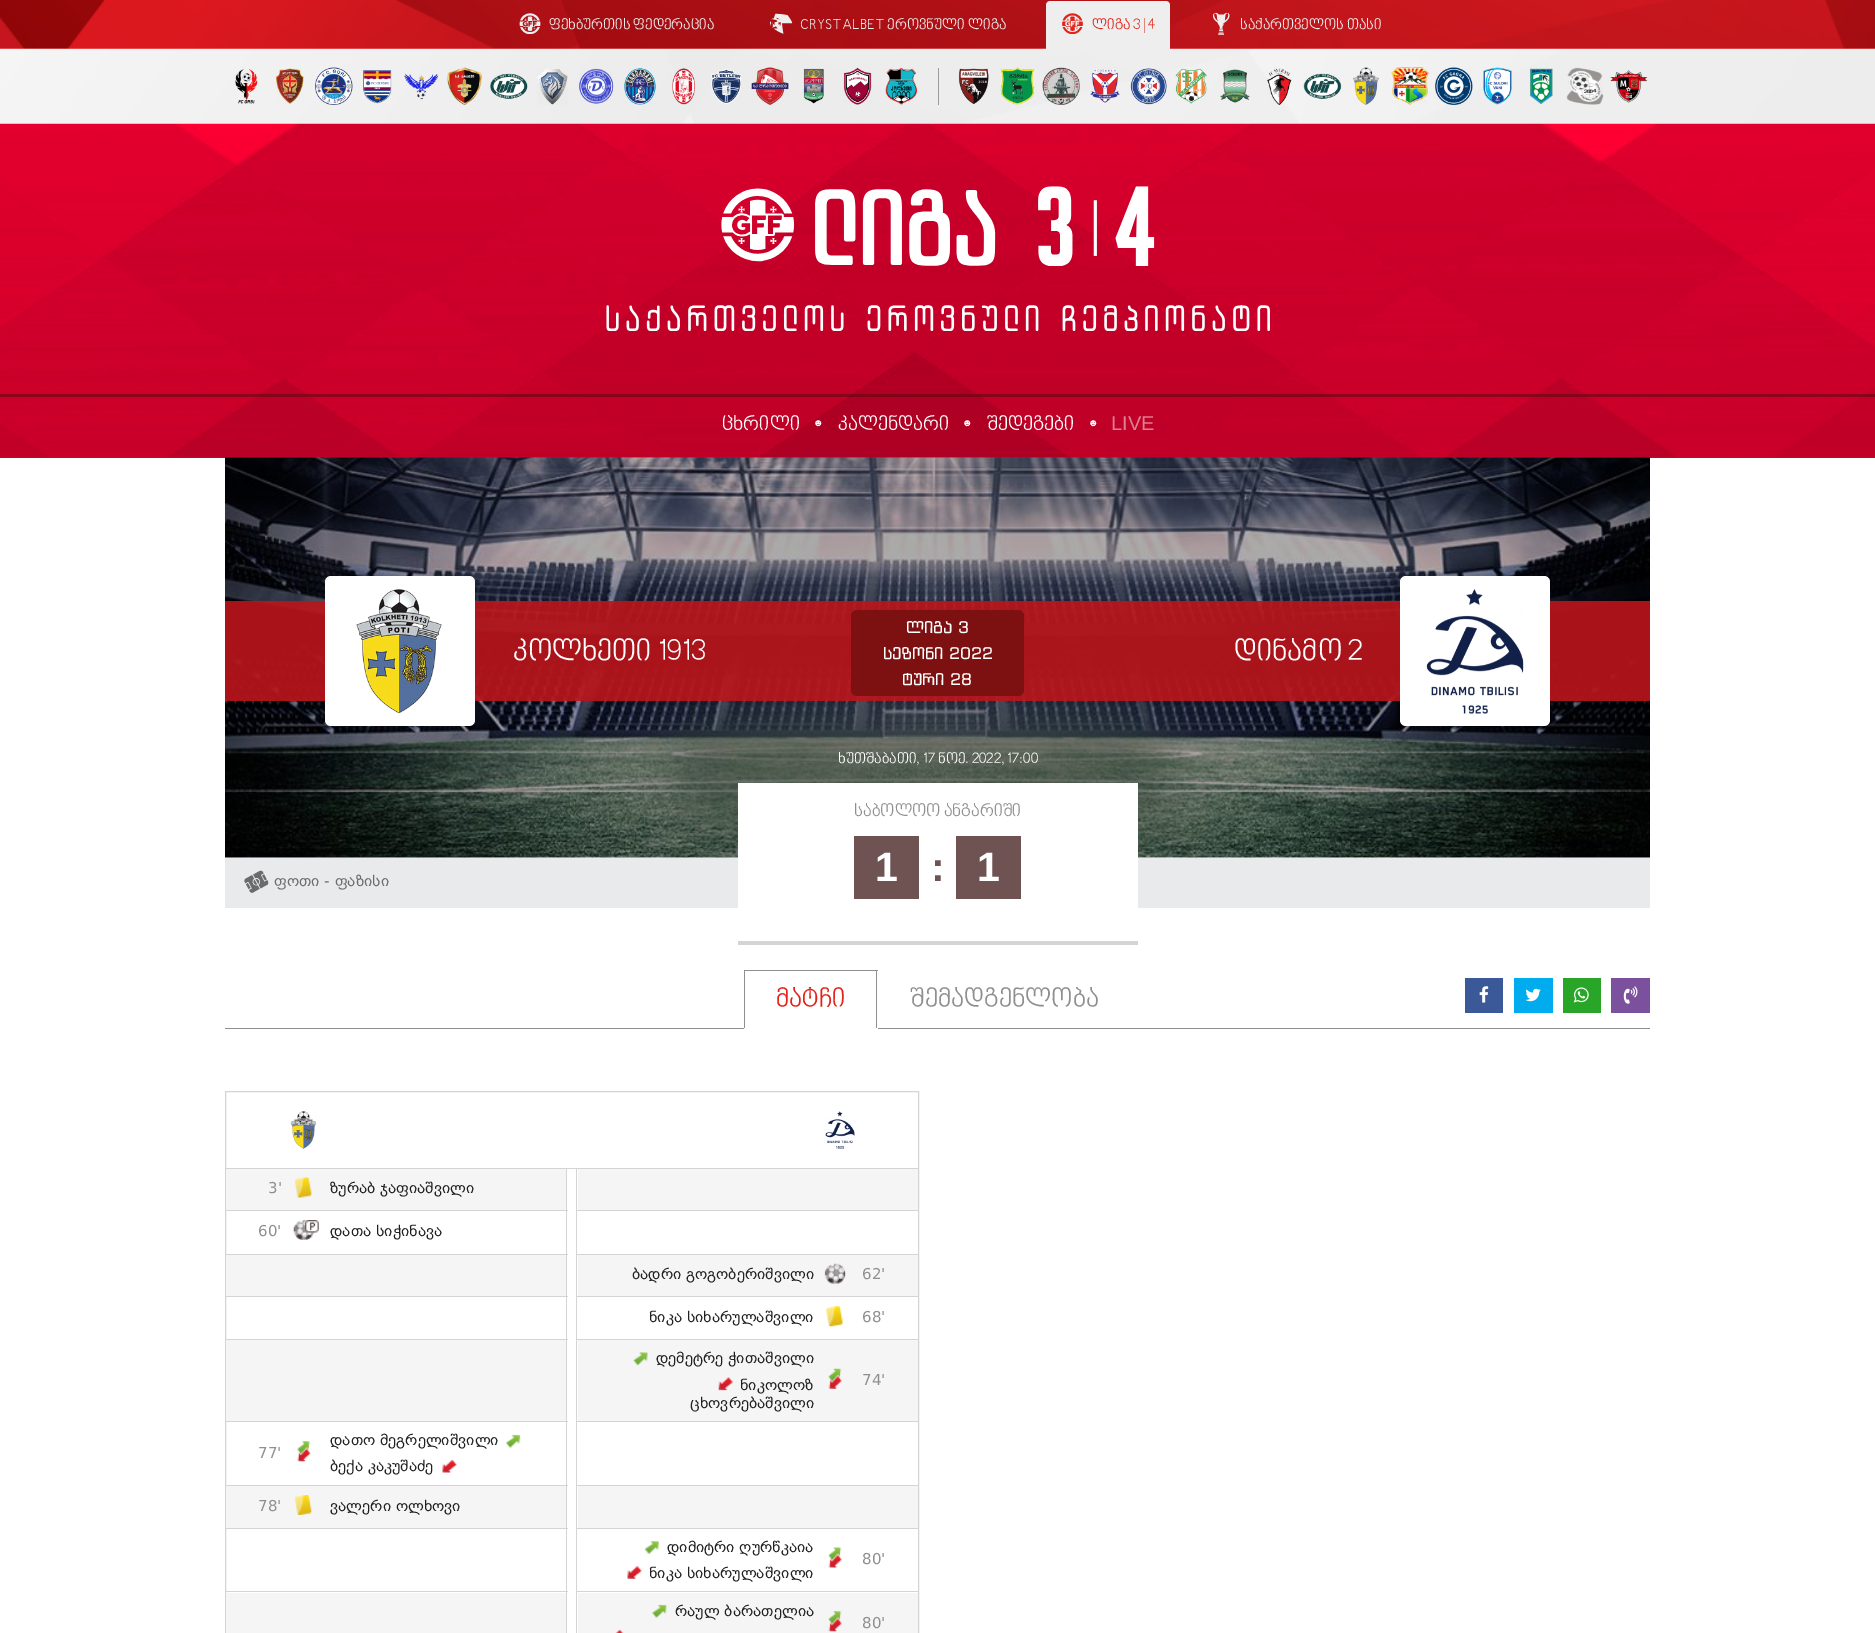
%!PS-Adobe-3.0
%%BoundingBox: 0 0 1875 1633
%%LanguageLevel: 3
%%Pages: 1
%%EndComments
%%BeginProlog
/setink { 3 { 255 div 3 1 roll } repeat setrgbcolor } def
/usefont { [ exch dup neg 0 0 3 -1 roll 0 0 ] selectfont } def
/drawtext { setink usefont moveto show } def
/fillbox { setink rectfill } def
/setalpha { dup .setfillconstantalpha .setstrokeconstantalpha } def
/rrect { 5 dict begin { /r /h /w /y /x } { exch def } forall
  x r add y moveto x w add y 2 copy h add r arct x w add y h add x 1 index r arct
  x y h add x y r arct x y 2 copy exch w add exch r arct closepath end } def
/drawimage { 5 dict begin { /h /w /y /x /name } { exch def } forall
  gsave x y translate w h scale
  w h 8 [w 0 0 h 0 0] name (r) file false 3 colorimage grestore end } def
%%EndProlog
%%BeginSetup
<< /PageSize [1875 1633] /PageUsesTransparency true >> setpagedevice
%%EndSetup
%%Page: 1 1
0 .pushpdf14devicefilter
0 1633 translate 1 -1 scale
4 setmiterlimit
0 0 1875 1633 255 255 255 fillbox
(assets/img1.rgb) 0 0 1875 49 drawimage
(assets/img2.rgb) 519 13 22 21 drawimage
(ფეხბურთის ფედერაცია) 549 30 /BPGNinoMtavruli-Regular 15 238 238 238 drawtext
(assets/img3.rgb) 770 13 23 21 drawimage
(CRYSTALBET ეროვნული ლიგა) 800 30 /BPGNinoMtavruli-Regular 15 238 238 238 drawtext
(assets/img6.rgb) 0 48 1875 76 drawimage
1050 1 moveto 1166 1 lineto 1168 1 1170 3 1170 5 curveto 1170 49 lineto 1046 49 lineto 1046 5 lineto 1046 3 1048 1 1050 1 curveto closepath fill
(assets/img4.rgb) 1062 13 21 21 drawimage
(ლიგა 3 | 4) 1092 30 /BPGNinoMtavruli-Regular 15 226 35 26 drawtext
(assets/img5.rgb) 1213 12 17 23 drawimage
(საქართველოს თასი) 1240 30 /BPGNinoMtavruli-Regular 15 238 238 238 drawtext
(assets/img7.rgb) 235 69 23 35 drawimage
(assets/img8.rgb) 275 68 29 36 drawimage
(assets/img9.rgb) 315 67 38 38 drawimage
(assets/img10.rgb) 363 70 29 34 drawimage
(assets/img11.rgb) 404 73 35 27 drawimage
(assets/img12.rgb) 447 67 35 38 drawimage
(assets/img13.rgb) 490 73 38 26 drawimage
(assets/img14.rgb) 537 69 31 36 drawimage
(assets/img15.rgb) 579 68 35 36 drawimage
(assets/img16.rgb) 624 68 32 37 drawimage
(assets/img17.rgb) 672 68 23 37 drawimage
(assets/img18.rgb) 711 69 30 35 drawimage
(assets/img19.rgb) 751 67 38 38 drawimage
(assets/img20.rgb) 803 68 21 36 drawimage
(assets/img21.rgb) 843 67 29 38 drawimage
(assets/img22.rgb) 885 67 32 38 drawimage
938 68 1 37 156 156 156 fillbox
(assets/img23.rgb) 958 68 31 37 drawimage
(assets/img24.rgb) 1000 67 34 38 drawimage
(assets/img25.rgb) 1042 67 38 38 drawimage
(assets/img26.rgb) 1090 69 30 34 drawimage
(assets/img27.rgb) 1130 68 37 37 drawimage
(assets/img28.rgb) 1175 68 32 36 drawimage
(assets/img29.rgb) 1220 69 30 34 drawimage
(assets/img30.rgb) 1267 68 25 37 drawimage
(assets/img31.rgb) 1303 73 39 26 drawimage
(assets/img32.rgb) 1353 67 26 38 drawimage
(assets/img33.rgb) 1391 67 38 38 drawimage
(assets/img34.rgb) 1435 67 38 38 drawimage
(assets/img35.rgb) 1483 67 29 38 drawimage
(assets/img36.rgb) 1530 68 23 37 drawimage
(assets/img37.rgb) 1566 67 38 38 drawimage
(assets/img38.rgb) 1610 70 38 33 drawimage
0 457 1875 1 255 0 0 fillbox
(assets/img39.rgb) 0 123 1875 335 drawimage
(assets/img40.rgb) 606 186 664 145 drawimage
0.5 setalpha
0 394 1875 3 80 7 14 fillbox
1 setalpha
(ცხრილი) 722 431 /BPGNinoMtavruli-Regular 20 255 255 255 drawtext
(☻) 813 426 /LiberationSans-Regular 10 255 255 255 drawtext
(კალენდარი) 838 431 /BPGNinoMtavruli-Regular 20 255 255 255 drawtext
(☻) 962 426 /LiberationSans-Regular 10 255 255 255 drawtext
(შედეგები) 987 431 /BPGNinoMtavruli-Regular 20 255 255 255 drawtext
(☻) 1088 426 /LiberationSans-Regular 10 255 255 255 drawtext
(LIVE) 1111 430 /LiberationSans-Regular 20 223 128 147 drawtext
(assets/img41.rgb) 225 457 1425 401 drawimage
0.9 setalpha
225 601 1425 100 187 20 26 fillbox
1 setalpha
255 255 255 setink
325 576 150 150 6 rrect fill
(assets/img42.rgb) 356 589 86 125 drawimage
(კოლხეთი 1913) 513 662 /BPGNinoMtavruli-Regular 30 255 255 255 drawtext
125 16 16 setink
851 610 173 86 6 rrect fill
(ლიგა 3) 906 633 /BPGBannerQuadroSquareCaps-Regular 16.25 255 255 255 drawtext
(სეზონი 2022) 883 659 /BPGBannerQuadroSquareCaps-Regular 16.25 255 255 255 drawtext
(ტური 28) 902 685 /BPGBannerQuadroSquareCaps-Regular 16.25 255 255 255 drawtext
(დინამო 2) 1234 662 /BPGNinoMtavruli-Regular 30 255 255 255 drawtext
1400 576 150 150 6 rrect fill
(assets/img43.rgb) 1426 589 98 125 drawimage
225 858 1425 50 233 234 236 fillbox
(assets/img44.rgb) 244 870 25 23 drawimage
(ფოთი - ფაზისი) 274 886 /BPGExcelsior-Regular 15 107 107 107 drawtext
(ხუთშაბათი, 17 ნოე. 2022, 17:00) 838 764 /BPGNinoMtavruli-Regular 15 255 255 255 drawtext
738 783 400 125 255 255 255 fillbox
738 941 400 4 212 212 212 fillbox
(საბოლოო ანგარიში) 854 817 /BPGNinoMtavruli-Regular 17.5 143 143 143 drawtext
854 836 65 63 111 83 83 fillbox
(1) 875 881 /LiberationSans-Bold 41 255 255 255 drawtext
(:) 931 881 /LiberationSans-Bold 41 111 83 83 drawtext
956 836 65 63 111 83 83 fillbox
(1) 977 881 /LiberationSans-Bold 41 255 255 255 drawtext
225 1028 1425 1 143 143 143 fillbox
255 255 255 setink
744 1028 moveto 744 1029 lineto 878 1029 lineto 878 971 lineto 878 1028 lineto closepath fill
744 970 134 1 143 143 143 fillbox
876 970 1 58 143 143 143 fillbox
744 970 1 58 143 143 143 fillbox
(მატჩი) 776 1008 /BPGNinoMtavruli-Regular 26.25 226 35 26 drawtext
(შემადგენლობა) 910 1008 /BPGNinoMtavruli-Regular 26.25 143 143 143 drawtext
1465 978 38 35 59 89 152 fillbox
(assets/img45.rgb) 1479 986 10 17 drawimage
1514 978 39 35 0 172 237 fillbox
(assets/img46.rgb) 1525 988 16 14 drawimage
1563 978 38 35 41 166 40 fillbox
(assets/img47.rgb) 1573 987 16 16 drawimage
1611 978 39 35 123 81 157 fillbox
(assets/img48.rgb) 1623 986 15 18 drawimage
212 212 212 setink
225.5 1091.5 693 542 rectstroke
(assets/img49.rgb) 290 1111 27 38 drawimage
(assets/img50.rgb) 825 1111 30 38 drawimage
226 1168 693 1 212 212 212 fillbox
226 1169 340 41 245 245 245 fillbox
(3') 268 1193 /BPGExcelsior-Regular 15 143 143 143 drawtext
(assets/img51.rgb) 294 1177 18 21 drawimage
566 1168 1 465 212 212 212 fillbox
226 1210 342 1 212 212 212 fillbox
(ზურაბ ჯაფიაშვილი) 330 1193 /BPGExcelsior-Regular 15 32 32 32 drawtext
576 1591 1 42 212 212 212 fillbox
576 1591 343 1 212 212 212 fillbox
576 1528 1 65 212 212 212 fillbox
576 1528 343 1 212 212 212 fillbox
576 1485 1 44 212 212 212 fillbox
576 1485 343 1 212 212 212 fillbox
576 1421 1 65 212 212 212 fillbox
576 1421 343 1 212 212 212 fillbox
576 1339 1 84 212 212 212 fillbox
576 1339 343 1 212 212 212 fillbox
576 1296 1 44 212 212 212 fillbox
576 1296 343 1 212 212 212 fillbox
576 1254 1 44 212 212 212 fillbox
576 1254 343 1 212 212 212 fillbox
576 1210 1 45 212 212 212 fillbox
576 1210 343 1 212 212 212 fillbox
576 1168 1 43 212 212 212 fillbox
578 1169 340 41 245 245 245 fillbox
(60') 258 1236 /BPGExcelsior-Regular 15 143 143 143 drawtext
(assets/img52.rgb) 293 1220 26 20 drawimage
226 1254 342 1 212 212 212 fillbox
(დათა სიჭინავა) 330 1236 /BPGExcelsior-Regular 15 32 32 32 drawtext
226 1255 340 41 245 245 245 fillbox
578 1255 340 41 245 245 245 fillbox
(ბადრი გოგობერიშვილი) 632 1279 /BPGExcelsior-Regular 15 32 32 32 drawtext
(assets/img53.rgb) 824 1263 22 21 drawimage
(62') 862 1279 /BPGExcelsior-Regular 15 143 143 143 drawtext
226 1296 342 1 212 212 212 fillbox
(ნიკა სიხარულაშვილი) 649 1322 /BPGExcelsior-Regular 15 32 32 32 drawtext
(assets/img54.rgb) 826 1306 17 21 drawimage
(68') 862 1322 /BPGExcelsior-Regular 15 143 143 143 drawtext
226 1339 342 1 212 212 212 fillbox
226 1340 340 81 245 245 245 fillbox
578 1340 340 81 245 245 245 fillbox
(assets/img55.rgb) 633 1352 15 14 drawimage
(დემეტრე ჭითაშვილი) 656 1363 /BPGExcelsior-Regular 15 32 32 32 drawtext
(assets/img56.rgb) 718 1377 15 14 drawimage
(ნიკოლოზ) 740 1390 /BPGExcelsior-Regular 15 32 32 32 drawtext
(ცხოვრებაშვილი) 690 1408 /BPGExcelsior-Regular 15 32 32 32 drawtext
(assets/img57.rgb) 828 1368 14 21 drawimage
(74') 862 1385 /BPGExcelsior-Regular 15 143 143 143 drawtext
226 1421 342 1 212 212 212 fillbox
(77') 258 1458 /BPGExcelsior-Regular 15 143 143 143 drawtext
(assets/img58.rgb) 297 1441 14 21 drawimage
226 1485 342 1 212 212 212 fillbox
(დათო მეგრელიშვილი) 330 1445 /BPGExcelsior-Regular 15 32 32 32 drawtext
(assets/img59.rgb) 506 1434 15 14 drawimage
(ბექა კაკუშაძე) 330 1471 /BPGExcelsior-Regular 15 32 32 32 drawtext
(assets/img60.rgb) 442 1459 15 14 drawimage
226 1486 340 42 245 245 245 fillbox
(78') 258 1511 /BPGExcelsior-Regular 15 143 143 143 drawtext
(assets/img61.rgb) 294 1495 18 20 drawimage
226 1528 342 1 212 212 212 fillbox
(ვალერი ოლხოვი) 330 1511 /BPGExcelsior-Regular 15 32 32 32 drawtext
578 1486 340 42 245 245 245 fillbox
(assets/img62.rgb) 644 1541 15 13 drawimage
(დიმიტრი ღურწკაია) 667 1552 /BPGExcelsior-Regular 15 32 32 32 drawtext
(assets/img63.rgb) 627 1566 15 13 drawimage
(ნიკა სიხარულაშვილი) 649 1578 /BPGExcelsior-Regular 15 32 32 32 drawtext
(assets/img64.rgb) 828 1547 14 21 drawimage
(80') 862 1564 /BPGExcelsior-Regular 15 143 143 143 drawtext
226 1591 342 1 212 212 212 fillbox
226 1593 340 40 245 245 245 fillbox
578 1593 340 40 245 245 245 fillbox
(assets/img65.rgb) 652 1604 15 14 drawimage
(რაულ ბარათელია) 675 1616 /BPGExcelsior-Regular 15 32 32 32 drawtext
(assets/img66.rgb) 615 1629 9 4 drawimage
(assets/img67.rgb) 828 1611 14 21 drawimage
(80') 862 1628 /BPGExcelsior-Regular 15 143 143 143 drawtext
.poppdf14devicefilter showpage
%%EOF
